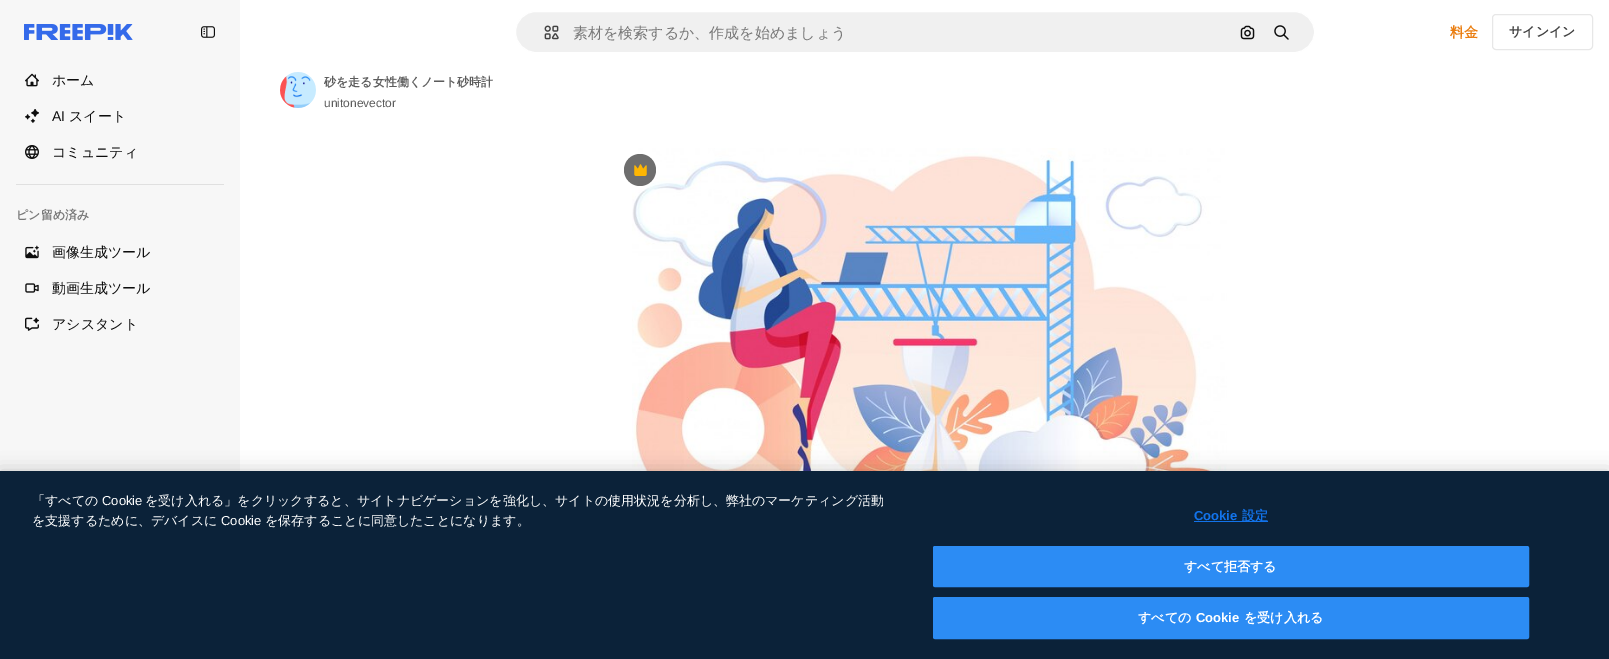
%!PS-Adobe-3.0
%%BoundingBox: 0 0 1609 659
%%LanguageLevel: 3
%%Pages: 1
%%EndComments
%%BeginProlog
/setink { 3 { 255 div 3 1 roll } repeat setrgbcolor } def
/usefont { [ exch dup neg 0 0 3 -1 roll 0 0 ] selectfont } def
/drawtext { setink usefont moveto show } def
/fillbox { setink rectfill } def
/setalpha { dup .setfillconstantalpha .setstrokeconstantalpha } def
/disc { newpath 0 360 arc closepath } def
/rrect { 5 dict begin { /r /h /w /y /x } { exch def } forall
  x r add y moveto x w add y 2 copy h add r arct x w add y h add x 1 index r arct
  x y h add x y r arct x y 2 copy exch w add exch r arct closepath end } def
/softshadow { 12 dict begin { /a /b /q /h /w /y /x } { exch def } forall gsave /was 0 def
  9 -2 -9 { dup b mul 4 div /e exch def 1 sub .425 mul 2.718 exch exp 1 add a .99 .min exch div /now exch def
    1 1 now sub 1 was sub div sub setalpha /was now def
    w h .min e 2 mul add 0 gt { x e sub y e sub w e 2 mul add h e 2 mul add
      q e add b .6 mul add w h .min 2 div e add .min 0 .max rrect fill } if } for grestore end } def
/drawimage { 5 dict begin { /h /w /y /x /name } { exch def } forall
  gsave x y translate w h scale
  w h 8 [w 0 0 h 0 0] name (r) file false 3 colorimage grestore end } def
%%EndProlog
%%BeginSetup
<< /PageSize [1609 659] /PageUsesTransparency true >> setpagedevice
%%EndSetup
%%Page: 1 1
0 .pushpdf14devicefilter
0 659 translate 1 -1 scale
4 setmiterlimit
0 0 1609 659 255 255 255 fillbox
240 240 240 setink
515.5 11.5 799 41 20.5 rrect gsave fill grestore
255 255 255 setink
stroke
(assets/img1.rgb) 544 25 15 15 drawimage
(素材を検索するか、作成を始めましょう) 573 38 /WenQuanYiZenHei-Medium 15 120 120 120 drawtext
(assets/img2.rgb) 1240 25 15 15 drawimage
(assets/img3.rgb) 1274 25 15 15 drawimage
(料金) 1450 37 /WenQuanYiZenHei-Bold 14 234 126 17 drawtext
231 231 231 setink
1492.5 14.5 100 35 3.5 rrect stroke
(サインイン) 1509 36 /WenQuanYiZenHei-Bold 13 66 66 66 drawtext
(assets/img4.rgb) 280 72 36 36 drawimage
(砂を走る女性働くノート砂時計) 324 86 /WenQuanYiZenHei-Bold 12 92 92 92 drawtext
(unitonevector) 324 107 /LiberationSans-Regular 12 92 92 92 drawtext
(assets/img5.rgb) 632 148 595 323 drawimage
0.6 setalpha
13 13 13 setink
640 170 16 disc fill
1 setalpha
(assets/img6.rgb) 634 164 13 12 drawimage
0 0 240 471 247 247 247 fillbox
(assets/img7.rgb) 24 24 109 16 drawimage
(assets/img8.rgb) 201 26 14 12 drawimage
(assets/img9.rgb) 25 73 14 14 drawimage
(ホーム) 52 85 /WenQuanYiZenHei-Medium 14 13 13 13 drawtext
(assets/img10.rgb) 25 109 14 14 drawimage
(AI) 52 121 /LiberationSans-Regular 14 13 13 13 drawtext
(スイート) 69 121 /WenQuanYiZenHei-Medium 14 13 13 13 drawtext
(assets/img11.rgb) 25 145 14 14 drawimage
(コミュニティ) 52 157 /WenQuanYiZenHei-Medium 14 13 13 13 drawtext
16 184 208 1 224 224 224 fillbox
(ピン留め済み) 16 219 /WenQuanYiZenHei-Bold 12 120 120 120 drawtext
(assets/img12.rgb) 25 245 14 14 drawimage
(画像生成ツール) 52 257 /WenQuanYiZenHei-Medium 14 13 13 13 drawtext
(assets/img13.rgb) 25 283 14 10 drawimage
(動画生成ツール) 52 293 /WenQuanYiZenHei-Medium 14 13 13 13 drawtext
(assets/img14.rgb) 25 317 14 14 drawimage
(アシスタント) 52 329 /WenQuanYiZenHei-Medium 14 13 13 13 drawtext
0 0 0 setink
0 471 1609 188 0 9 0.2 softshadow
0 471 1609 188 11 34 57 fillbox
(「すべての) 32 505 /WenQuanYiZenHei-Medium 13 255 255 255 drawtext
(Cookie) 102 505 /LiberationSans-Regular 13 255 255 255 drawtext
(を受け入れる」をクリックすると、サイトナビゲーションを強化し、サイトの使用状況を分析し、弊社のマーケティング活動) 145 505 /WenQuanYiZenHei-Medium 13 255 255 255 drawtext
(を支援するために、デバイスに) 32 525 /WenQuanYiZenHei-Medium 13 255 255 255 drawtext
(Cookie) 221 525 /LiberationSans-Regular 13 255 255 255 drawtext
(を保存することに同意したことになります。) 265 525 /WenQuanYiZenHei-Medium 13 255 255 255 drawtext
(Cookie) 1194 520 /LiberationSans-Bold 13 18 115 235 drawtext
1194 521 74 1 18 115 235 fillbox
(設定) 1242 520 /WenQuanYiZenHei-Bold 13 18 115 235 drawtext
44 140 244 setink
933.5 546.5 595 40 1.5 rrect gsave fill grestore
stroke
(すべて拒否する) 1184 571 /WenQuanYiZenHei-Bold 13 255 255 255 drawtext
44 140 244 setink
933.5 597.5 595 41 1.5 rrect gsave fill grestore
stroke
(すべての) 1138 622 /WenQuanYiZenHei-Bold 13 255 255 255 drawtext
(Cookie) 1196 622 /LiberationSans-Bold 13 255 255 255 drawtext
(を受け入れる) 1244 622 /WenQuanYiZenHei-Bold 13 255 255 255 drawtext
.poppdf14devicefilter showpage
%%EOF
